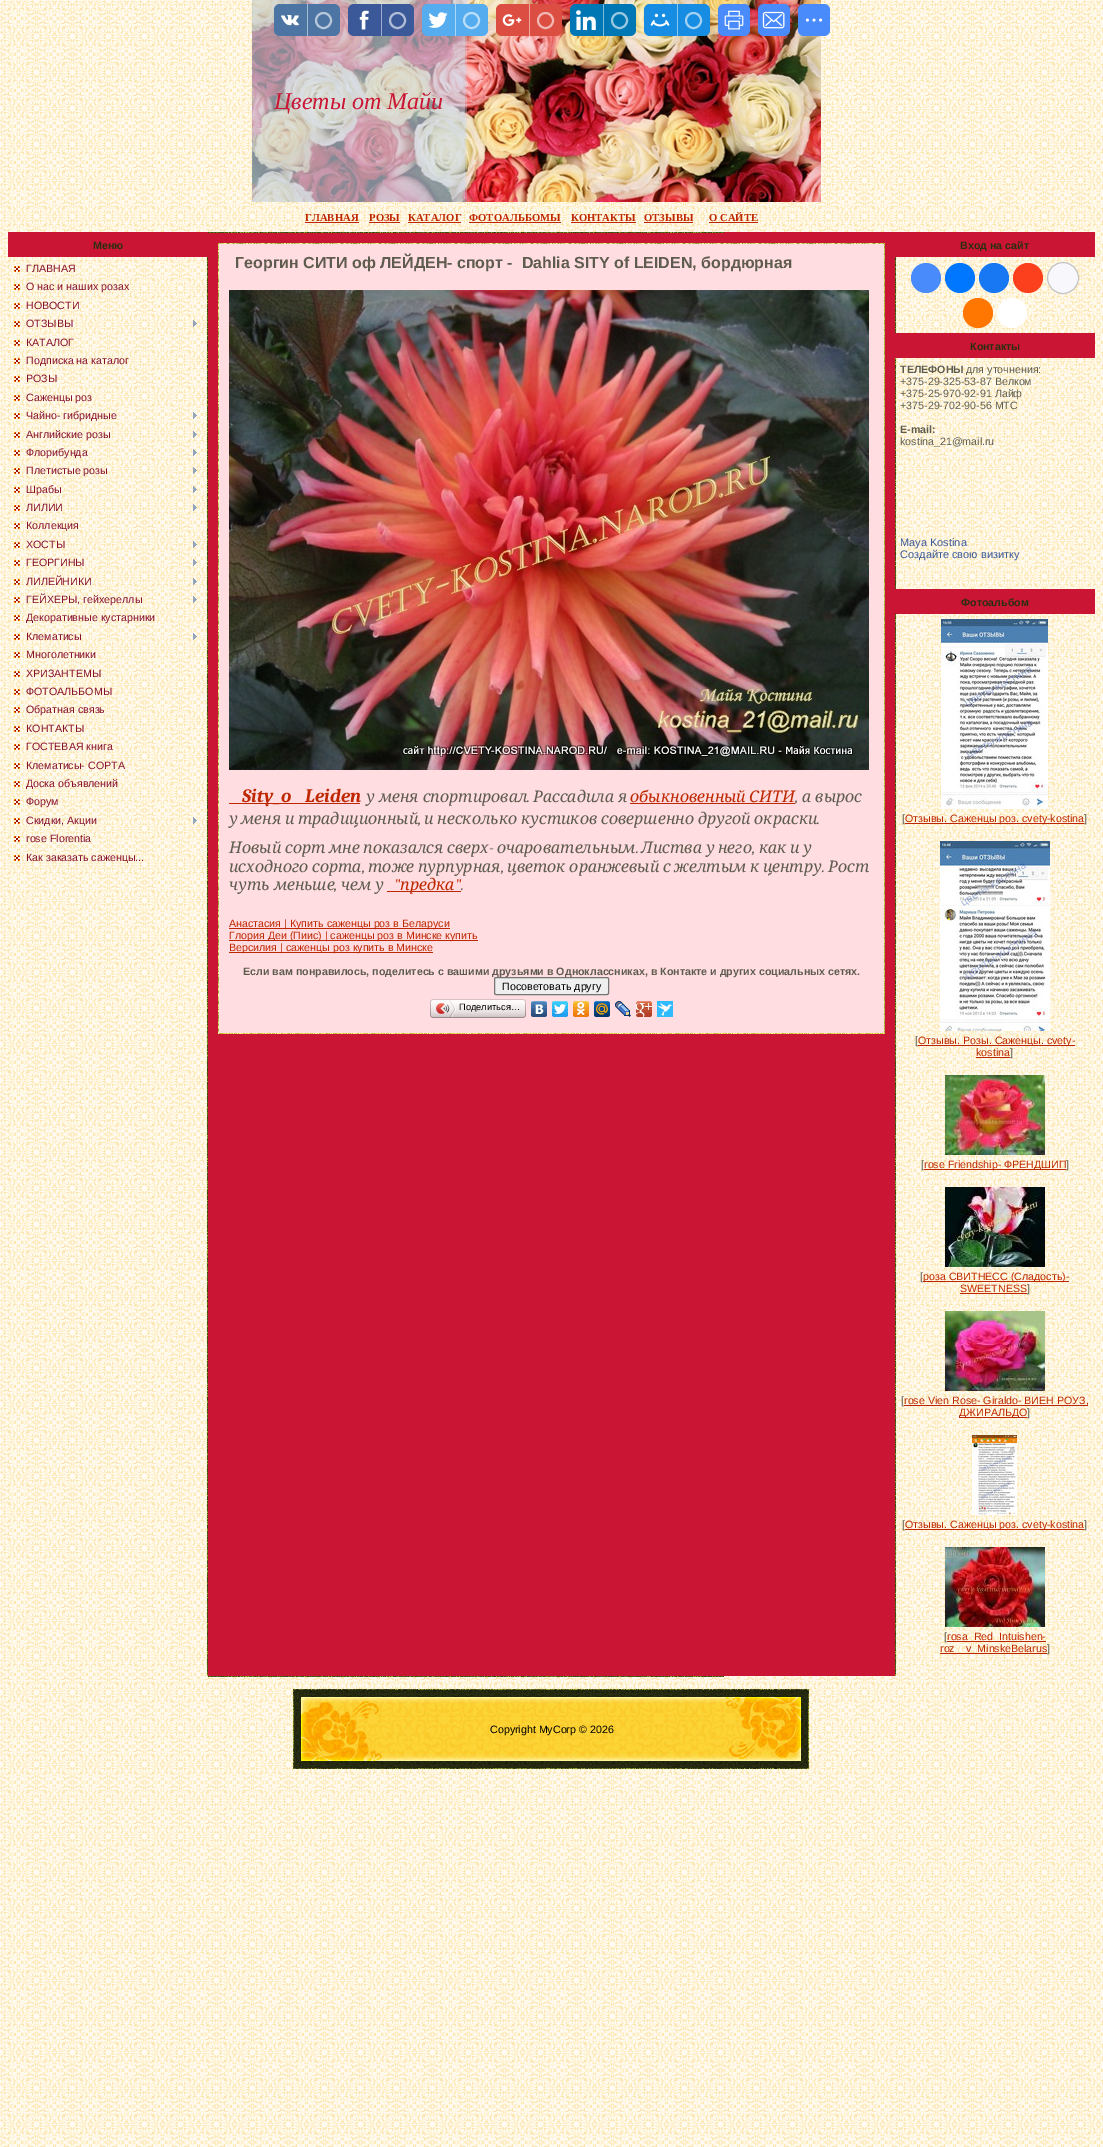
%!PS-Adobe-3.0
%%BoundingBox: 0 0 1103 2147
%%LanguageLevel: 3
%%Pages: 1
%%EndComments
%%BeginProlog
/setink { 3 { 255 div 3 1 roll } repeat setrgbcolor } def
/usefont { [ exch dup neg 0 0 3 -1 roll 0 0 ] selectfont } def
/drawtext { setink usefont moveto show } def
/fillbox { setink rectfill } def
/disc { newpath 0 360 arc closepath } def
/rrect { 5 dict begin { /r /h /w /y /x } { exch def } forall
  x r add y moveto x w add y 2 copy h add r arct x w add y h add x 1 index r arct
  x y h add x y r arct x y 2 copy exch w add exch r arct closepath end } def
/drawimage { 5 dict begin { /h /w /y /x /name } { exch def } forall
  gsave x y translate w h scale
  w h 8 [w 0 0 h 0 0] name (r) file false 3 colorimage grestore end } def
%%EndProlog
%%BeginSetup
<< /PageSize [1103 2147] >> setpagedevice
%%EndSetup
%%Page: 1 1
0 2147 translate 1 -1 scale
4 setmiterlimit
0 0 1103 2147 255 255 255 fillbox
(assets/img1.rgb) 0 0 1103 2147 drawimage
(assets/img11.rgb) 252 0 214 202 drawimage
77 117 163 setink
274 4 66 32 6 rrect fill
(assets/img2.rgb) 281 15 18 11 drawimage
307 4 1 32 166 186 209 fillbox
184 200 218 setink
2 setlinewidth
323.5 20.5 7.5 disc stroke
59 89 152 setink
348 4 66 32 6 rrect fill
(assets/img3.rgb) 359 10 10 20 drawimage
381 4 1 32 157 172 204 fillbox
177 189 214 setink
397.5 20.5 7.5 disc stroke
(assets/img12.rgb) 466 0 355 202 drawimage
85 172 238 setink
422 4 66 32 6 rrect fill
(assets/img4.rgb) 428 12 20 16 drawimage
455 4 1 32 170 214 247 fillbox
187 222 248 setink
471.5 20.5 7.5 disc stroke
220 78 65 setink
496 4 66 32 6 rrect fill
(assets/img5.rgb) 502 14 20 12 drawimage
529 4 1 32 238 167 160 fillbox
241 184 179 setink
545.5 20.5 7.5 disc stroke
0 119 181 setink
570 4 66 32 6 rrect fill
(assets/img6.rgb) 576 10 20 20 drawimage
603 4 1 32 128 187 218 fillbox
153 201 225 setink
619.5 20.5 7.5 disc stroke
22 141 226 setink
644 4 66 32 6 rrect fill
(assets/img7.rgb) 650 13 20 14 drawimage
677 4 1 32 139 198 241 fillbox
162 209 243 setink
693.5 20.5 7.5 disc stroke
73 139 250 setink
718 4 32 32 6 rrect fill
(assets/img8.rgb) 724 10 20 20 drawimage
758 4 32 32 6 rrect fill
(assets/img9.rgb) 762 11 23 18 drawimage
798 4 32 32 6 rrect fill
(assets/img10.rgb) 805 18 18 4 drawimage
(Цветы от Майи) 274 109 /LiberationSerif-Italic 24 202 22 52 drawtext
(ГЛАВНАЯ) 305 221 /LiberationSerif-Bold 10.67 190 39 0 drawtext
305 222 54 1 190 39 0 fillbox
(РОЗЫ) 369 221 /LiberationSerif-Bold 10.67 190 39 0 drawtext
369 222 31 1 190 39 0 fillbox
(КАТАЛОГ) 408 221 /LiberationSerif-Bold 10.67 190 39 0 drawtext
408 222 53 1 190 39 0 fillbox
(ФОТОАЛЬБОМЫ) 469 221 /LiberationSerif-Bold 10.67 190 39 0 drawtext
469 222 92 1 190 39 0 fillbox
(КОНТАКТЫ) 571 221 /LiberationSerif-Bold 10.67 190 39 0 drawtext
571 222 65 1 190 39 0 fillbox
(ОТЗЫВЫ) 644 221 /LiberationSerif-Bold 10.67 190 39 0 drawtext
644 222 49 1 190 39 0 fillbox
(О САЙТЕ) 709 221 /LiberationSerif-Bold 10.67 190 39 0 drawtext
709 222 49 1 190 39 0 fillbox
(assets/img13.rgb) 207 257 1 1419 drawimage
8 232 200 25 202 22 52 fillbox
(Меню) 93 249 /LiberationSans-Bold 10.67 42 46 18 drawtext
(assets/img14.rgb) 14 266 6 6 drawimage
(ГЛАВНАЯ) 26 272 /LiberationSans-Regular 10.67 134 17 47 drawtext
(assets/img15.rgb) 14 284 6 6 drawimage
(О нас и наших розах) 26 290 /LiberationSans-Regular 10.67 134 17 47 drawtext
(assets/img16.rgb) 14 303 6 6 drawimage
(НОВОСТИ) 26 309 /LiberationSans-Regular 10.67 134 17 47 drawtext
(assets/img17.rgb) 14 321 6 6 drawimage
(ОТЗЫВЫ) 26 327 /LiberationSans-Regular 10.67 134 17 47 drawtext
(assets/img18.rgb) 193 320 4 7 drawimage
(assets/img19.rgb) 14 340 6 6 drawimage
(КАТАЛОГ) 26 346 /LiberationSans-Regular 10.67 134 17 47 drawtext
(assets/img20.rgb) 14 358 6 6 drawimage
(Подписка на каталог) 26 364 /LiberationSans-Regular 10.67 134 17 47 drawtext
(assets/img19.rgb) 14 376 6 6 drawimage
(РОЗЫ) 26 382 /LiberationSans-Regular 10.67 134 17 47 drawtext
(assets/img21.rgb) 14 395 6 6 drawimage
(Саженцы роз) 26 401 /LiberationSans-Regular 10.67 134 17 47 drawtext
(assets/img22.rgb) 14 413 6 6 drawimage
(Чайно- гибридные) 26 419 /LiberationSans-Regular 10.67 134 17 47 drawtext
(assets/img23.rgb) 193 412 4 7 drawimage
(assets/img24.rgb) 14 432 6 6 drawimage
(Английские розы) 26 438 /LiberationSans-Regular 10.67 134 17 47 drawtext
(assets/img25.rgb) 193 431 4 7 drawimage
(assets/img26.rgb) 14 450 6 6 drawimage
(Флорибунда) 26 456 /LiberationSans-Regular 10.67 134 17 47 drawtext
(assets/img27.rgb) 193 449 4 7 drawimage
(assets/img24.rgb) 14 468 6 6 drawimage
(Плетистые розы) 26 474 /LiberationSans-Regular 10.67 134 17 47 drawtext
(assets/img25.rgb) 193 467 4 7 drawimage
(assets/img28.rgb) 14 487 6 6 drawimage
(Шрабы) 26 493 /LiberationSans-Regular 10.67 134 17 47 drawtext
(assets/img29.rgb) 193 486 4 7 drawimage
(assets/img30.rgb) 14 505 6 6 drawimage
(ЛИЛИИ) 26 511 /LiberationSans-Regular 10.67 134 17 47 drawtext
(assets/img31.rgb) 193 504 4 7 drawimage
(assets/img28.rgb) 14 523 6 6 drawimage
(Коллекция) 26 529 /LiberationSans-Regular 10.67 134 17 47 drawtext
(assets/img32.rgb) 14 542 6 6 drawimage
(ХОСТЫ) 26 548 /LiberationSans-Regular 10.67 134 17 47 drawtext
(assets/img33.rgb) 193 541 4 7 drawimage
(assets/img34.rgb) 14 560 6 6 drawimage
(ГЕОРГИНЫ) 26 566 /LiberationSans-Regular 10.67 134 17 47 drawtext
(assets/img35.rgb) 193 559 4 7 drawimage
(assets/img36.rgb) 14 579 6 6 drawimage
(ЛИЛЕЙНИКИ) 26 585 /LiberationSans-Regular 10.67 134 17 47 drawtext
(assets/img37.rgb) 193 578 4 7 drawimage
(assets/img38.rgb) 14 597 6 6 drawimage
(ГЕЙХЕРЫ, гейхереллы) 26 603 /LiberationSans-Regular 10.67 134 17 47 drawtext
(assets/img39.rgb) 193 596 4 7 drawimage
(assets/img36.rgb) 14 615 6 6 drawimage
(Декоративные кустарники) 26 621 /LiberationSans-Regular 10.67 134 17 47 drawtext
(assets/img40.rgb) 14 634 6 6 drawimage
(Клематисы) 26 640 /LiberationSans-Regular 10.67 134 17 47 drawtext
(assets/img41.rgb) 193 633 4 7 drawimage
(assets/img42.rgb) 14 652 6 6 drawimage
(Многолетники) 26 658 /LiberationSans-Regular 10.67 134 17 47 drawtext
(assets/img43.rgb) 14 671 6 6 drawimage
(ХРИЗАНТЕМЫ) 26 677 /LiberationSans-Regular 10.67 134 17 47 drawtext
(assets/img44.rgb) 14 689 6 6 drawimage
(ФОТОАЛЬБОМЫ) 26 695 /LiberationSans-Regular 10.67 134 17 47 drawtext
(assets/img43.rgb) 14 707 6 6 drawimage
(Обратная связь) 26 713 /LiberationSans-Regular 10.67 134 17 47 drawtext
(assets/img45.rgb) 14 726 6 6 drawimage
(КОНТАКТЫ) 26 732 /LiberationSans-Regular 10.67 134 17 47 drawtext
(assets/img46.rgb) 14 744 6 6 drawimage
(ГОСТЕВАЯ книга) 26 750 /LiberationSans-Regular 10.67 134 17 47 drawtext
(assets/img47.rgb) 14 763 6 6 drawimage
(Клематисы- СОРТА) 26 769 /LiberationSans-Regular 10.67 134 17 47 drawtext
(assets/img48.rgb) 14 781 6 6 drawimage
(Доска объявлений) 26 787 /LiberationSans-Regular 10.67 134 17 47 drawtext
(assets/img47.rgb) 14 799 6 6 drawimage
(Форум) 26 805 /LiberationSans-Regular 10.67 134 17 47 drawtext
(assets/img49.rgb) 14 818 6 6 drawimage
(Скидки, Акции) 26 824 /LiberationSans-Regular 10.67 134 17 47 drawtext
(assets/img50.rgb) 193 817 4 7 drawimage
(assets/img51.rgb) 14 836 6 6 drawimage
(rose Florentia) 26 842 /LiberationSans-Regular 10.67 134 17 47 drawtext
(assets/img52.rgb) 14 855 6 6 drawimage
(Как заказать саженцы...) 26 861 /LiberationSans-Regular 10.67 134 17 47 drawtext
208 232 687 1444 202 22 52 fillbox
(assets/img53.rgb) 208 232 516 1 drawimage
(assets/img54.rgb) 218 243 667 791 drawimage
219 244 665 789 255 221 225 fillbox
(Георгин СИТИ оф ЛЕЙДЕН- спорт -  Dahlia SITY of LEIDEN, бордюрная) 235 268 /LiberationSans-Bold 16 94 92 78 drawtext
(assets/img55.rgb) 229 290 640 480 drawimage
229 803 131 1 190 39 0 fillbox
(Sity_o) 242 802 /Caladea-BoldItalic 19 190 39 0 drawtext
(Leiden) 305 802 /Caladea-BoldItalic 19 190 39 0 drawtext
(у меня спортировал) 366 802 /NotoSerif-Italic 16 94 92 78 drawtext
(.) 527 802 /Caladea-Italic 16 94 92 78 drawtext
(Рассадила я) 533 802 /NotoSerif-Italic 16 94 92 78 drawtext
190 39 0 setink
630 802 moveto -1 0 32 (обыкновенный СИТИ) widthshow
(а вырос) 802 802 /NotoSerif-Italic 16 94 92 78 drawtext
630 803 165 1 190 39 0 fillbox
(,) 795 802 /Caladea-Italic 16 94 92 78 drawtext
/NotoSerif-Italic 16 usefont
229 824 moveto -0.5 0 32 (у меня и традиционный) widthshow
(,) 418 824 /Caladea-Italic 16 94 92 78 drawtext
/NotoSerif-Italic 16 usefont
424 824 moveto -0.5 0 32 (и несколько кустиков совершенно другой окраски) widthshow
(.) 817 824 /Caladea-Italic 16 94 92 78 drawtext
/NotoSerif-Italic 16 usefont
229 853 moveto -0.5 0 32 (Новый сорт мне показался сверх) widthshow
(-) 489 853 /Caladea-Italic 16 94 92 78 drawtext
(очаровательным) 497 853 /NotoSerif-Italic 16 94 92 78 drawtext
641 853 moveto -0.5 0 32 (Листва у него) widthshow
759 853 moveto -0.5 0 32 (как и у) widthshow
(.) 636 853 /Caladea-Italic 16 94 92 78 drawtext
(,) 752 853 /Caladea-Italic 16 94 92 78 drawtext
/NotoSerif-Italic 16 usefont
229 872 moveto -0.5 0 32 (исходного сорта) widthshow
(,) 362 872 /Caladea-Italic 16 94 92 78 drawtext
/NotoSerif-Italic 16 usefont
368 872 moveto -0.5 0 32 (тоже пурпурная) widthshow
(,) 501 872 /Caladea-Italic 16 94 92 78 drawtext
/NotoSerif-Italic 16 usefont
507 872 moveto -0.5 0 32 (цветок оранжевый с желтым к центру) widthshow
(.) 822 872 /Caladea-Italic 16 94 92 78 drawtext
(Рост) 828 872 /NotoSerif-Italic 16 94 92 78 drawtext
(чуть меньше) 229 890 /NotoSerif-Italic 16 94 92 78 drawtext
(,) 334 890 /Caladea-Italic 16 94 92 78 drawtext
(чем у) 341 890 /NotoSerif-Italic 16 94 92 78 drawtext
(") 394 890 /Caladea-Italic 16 190 39 0 drawtext
387 891 74 1 190 39 0 fillbox
(предка) 400 890 /NotoSerif-Italic 16 190 39 0 drawtext
(") 455 890 /Caladea-Italic 16 190 39 0 drawtext
(.) 461 890 /Caladea-Italic 16 94 92 78 drawtext
229 928 221 1 190 39 0 fillbox
(Анастасия | Купить саженцы роз в Беларуси) 229 927 /LiberationSans-Regular 10.67 190 39 0 drawtext
229 940 249 1 190 39 0 fillbox
(Глория Деи \(Пиис\) | саженцы роз в Минске купить) 229 939 /LiberationSans-Regular 10.67 190 39 0 drawtext
229 952 204 1 190 39 0 fillbox
(Версилия | саженцы роз купить в Минске) 229 951 /LiberationSans-Regular 10.67 190 39 0 drawtext
(Если вам понравилось, поделитесь с вашими друзьями в Одноклассниках, в Контакте и других социальных сетях.) 243 975 /LiberationSans-Bold 10.67 94 92 78 drawtext
239 239 239 setink
494.5 977.5 114 17 1.5 rrect gsave fill grestore
118 118 118 setink
1 setlinewidth
stroke
(Посоветовать другу) 502 990 /LiberationSans-Regular 10.67 0 0 0 drawtext
(assets/img56.rgb) 433 999 90 19 drawimage
(assets/img57.rgb) 430 999 3 19 drawimage
(assets/img58.rgb) 436 1000 20 17 drawimage
(Поделиться…) 459 1010 /LiberationSans-Regular 9.25 0 0 0 drawtext
(assets/img59.rgb) 523 999 3 19 drawimage
(assets/img60.rgb) 531 1001 16 16 drawimage
(assets/img61.rgb) 552 1001 16 16 drawimage
(assets/img62.rgb) 573 1001 16 16 drawimage
(assets/img63.rgb) 594 1001 16 16 drawimage
(assets/img64.rgb) 615 1001 16 16 drawimage
(assets/img65.rgb) 636 1001 16 16 drawimage
(assets/img66.rgb) 657 1001 16 16 drawimage
(assets/img13.rgb) 895 257 1 1419 drawimage
895 232 200 25 202 22 52 fillbox
(Вход на сайт) 960 249 /LiberationSans-Bold 10.67 42 46 18 drawtext
73 139 250 setink
926 278 15 disc fill
0 119 255 setink
960 278 15 disc fill
24 119 242 setink
994 278 15 disc fill
252 63 29 setink
1028 278 15 disc fill
248 248 252 setink
1063 278 15.5 disc gsave fill grestore
196 196 196 setink
stroke
255 119 0 setink
978 313 15 disc fill
255 255 255 setink
1012 313 15 disc fill
895 333 200 25 202 22 52 fillbox
(Контакты) 970 350 /LiberationSans-Bold 10.67 42 46 18 drawtext
(ТЕЛЕФОНЫ) 900 373 /LiberationSans-Bold 10.67 94 92 78 drawtext
(для уточнения:) 966 373 /LiberationSans-Regular 10.67 94 92 78 drawtext
(+375-29-325-53-87 Велком) 900 385 /LiberationSans-Regular 10.67 94 92 78 drawtext
(+375-25-970-92-91 Лайф) 900 397 /LiberationSans-Regular 10.67 94 92 78 drawtext
(+375-29-702-90-56 МТС) 900 409 /LiberationSans-Regular 10.67 94 92 78 drawtext
(E-mail:) 900 433 /LiberationSans-Bold 10.67 94 92 78 drawtext
(kostina_21@mail.ru) 900 445 /LiberationSans-Regular 10.67 94 92 78 drawtext
(Maya Kostina) 900 546 /LiberationSans-Regular 11 59 89 152 drawtext
(Создайте свою визитку) 900 558 /LiberationSans-Regular 11 59 89 152 drawtext
895 589 200 25 202 22 52 fillbox
(Фотоальбом) 961 606 /LiberationSans-Bold 10.67 42 46 18 drawtext
(assets/img67.rgb) 941 619 107 190 drawimage
([) 902 822 /LiberationSans-Regular 10.67 94 92 78 drawtext
905 823 179 1 190 39 0 fillbox
(Отзывы. Саженцы роз. cvety-kostina) 905 822 /LiberationSans-Regular 10.67 190 39 0 drawtext
(]) 1084 822 /LiberationSans-Regular 10.67 94 92 78 drawtext
(assets/img68.rgb) 940 841 110 190 drawimage
([) 915 1044 /LiberationSans-Regular 10.67 94 92 78 drawtext
918 1045 157 1 190 39 0 fillbox
(Отзывы. Розы. Саженцы. cvety-) 918 1044 /LiberationSans-Regular 10.67 190 39 0 drawtext
(kostina) 976 1056 /LiberationSans-Regular 10.67 190 39 0 drawtext
976 1057 34 1 190 39 0 fillbox
(]) 1010 1056 /LiberationSans-Regular 10.67 94 92 78 drawtext
(assets/img69.rgb) 945 1075 100 80 drawimage
([) 921 1168 /LiberationSans-Regular 10.67 94 92 78 drawtext
924 1169 142 1 190 39 0 fillbox
(rose Friendship- ФРЕНДШИП) 924 1168 /LiberationSans-Regular 10.67 190 39 0 drawtext
(]) 1066 1168 /LiberationSans-Regular 10.67 94 92 78 drawtext
(assets/img70.rgb) 945 1187 100 80 drawimage
([) 920 1280 /LiberationSans-Regular 10.67 94 92 78 drawtext
923 1281 146 1 190 39 0 fillbox
(роза СВИТНЕСС \(Сладость\)-) 923 1280 /LiberationSans-Regular 10.67 190 39 0 drawtext
(SWEETNESS) 960 1292 /LiberationSans-Regular 10.67 190 39 0 drawtext
960 1293 67 1 190 39 0 fillbox
(]) 1027 1292 /LiberationSans-Regular 10.67 94 92 78 drawtext
(assets/img71.rgb) 945 1311 100 80 drawimage
([) 901 1404 /LiberationSans-Regular 10.67 94 92 78 drawtext
904 1405 184 1 190 39 0 fillbox
(rose Vien Rose- Giraldo- ВИЕН РОУЗ,) 904 1404 /LiberationSans-Regular 10.67 190 39 0 drawtext
959 1417 68 1 190 39 0 fillbox
(ДЖИРАЛЬДО) 959 1416 /LiberationSans-Regular 10.67 190 39 0 drawtext
(]) 1027 1416 /LiberationSans-Regular 10.67 94 92 78 drawtext
(assets/img72.rgb) 972 1435 45 80 drawimage
([) 902 1528 /LiberationSans-Regular 10.67 94 92 78 drawtext
905 1529 179 1 190 39 0 fillbox
(Отзывы. Саженцы роз. cvety-kostina) 905 1528 /LiberationSans-Regular 10.67 190 39 0 drawtext
(]) 1084 1528 /LiberationSans-Regular 10.67 94 92 78 drawtext
(assets/img73.rgb) 945 1547 100 80 drawimage
([) 944 1640 /LiberationSans-Regular 10.67 94 92 78 drawtext
947 1641 99 1 190 39 0 fillbox
(rosa_Red_Intuishen-) 947 1640 /LiberationSans-Regular 10.67 190 39 0 drawtext
(roz) 940 1652 /LiberationSans-Regular 10.67 190 39 0 drawtext
940 1653 107 1 190 39 0 fillbox
(v_MinskeBelarus) 966 1652 /LiberationSans-Regular 10.67 190 39 0 drawtext
(]) 1047 1652 /LiberationSans-Regular 10.67 94 92 78 drawtext
(assets/img53.rgb) 208 1676 516 1 drawimage
(assets/img74.rgb) 293 1689 516 80 drawimage
(Copyright MyCorp © 2026) 490 1733 /LiberationSans-Regular 10.67 0 0 0 drawtext
showpage
%%EOF
